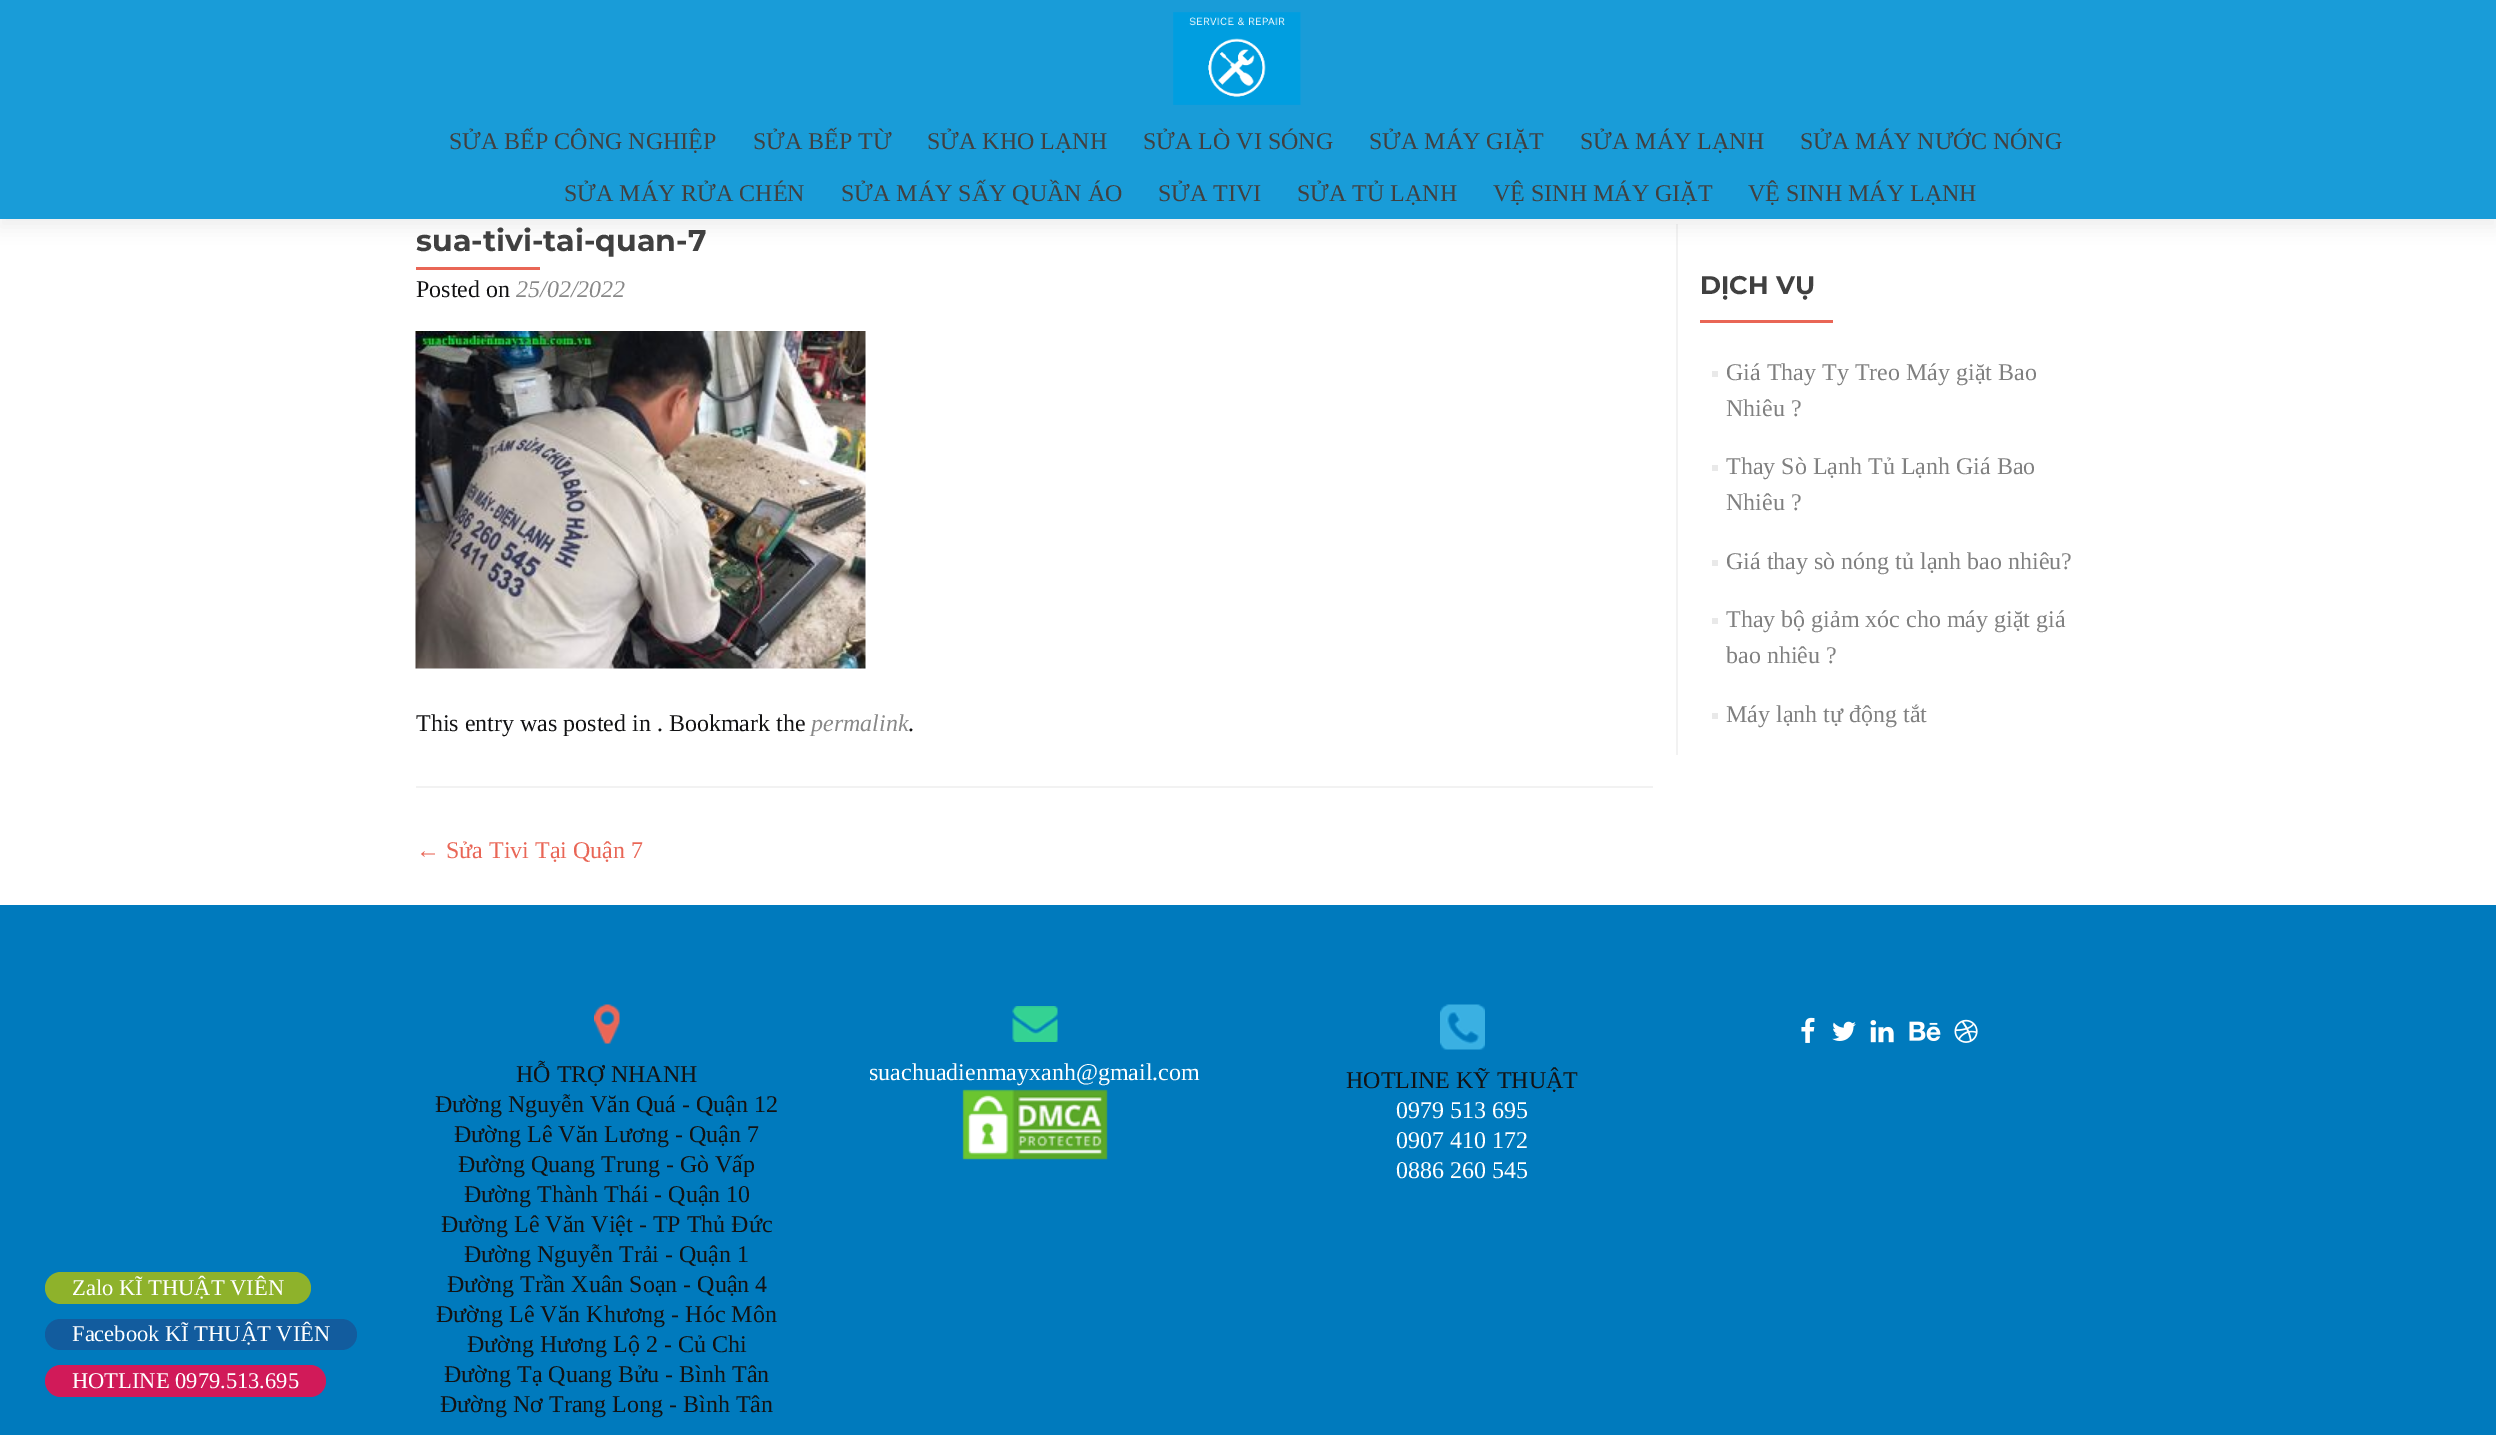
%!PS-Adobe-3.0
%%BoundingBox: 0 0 2496 1435
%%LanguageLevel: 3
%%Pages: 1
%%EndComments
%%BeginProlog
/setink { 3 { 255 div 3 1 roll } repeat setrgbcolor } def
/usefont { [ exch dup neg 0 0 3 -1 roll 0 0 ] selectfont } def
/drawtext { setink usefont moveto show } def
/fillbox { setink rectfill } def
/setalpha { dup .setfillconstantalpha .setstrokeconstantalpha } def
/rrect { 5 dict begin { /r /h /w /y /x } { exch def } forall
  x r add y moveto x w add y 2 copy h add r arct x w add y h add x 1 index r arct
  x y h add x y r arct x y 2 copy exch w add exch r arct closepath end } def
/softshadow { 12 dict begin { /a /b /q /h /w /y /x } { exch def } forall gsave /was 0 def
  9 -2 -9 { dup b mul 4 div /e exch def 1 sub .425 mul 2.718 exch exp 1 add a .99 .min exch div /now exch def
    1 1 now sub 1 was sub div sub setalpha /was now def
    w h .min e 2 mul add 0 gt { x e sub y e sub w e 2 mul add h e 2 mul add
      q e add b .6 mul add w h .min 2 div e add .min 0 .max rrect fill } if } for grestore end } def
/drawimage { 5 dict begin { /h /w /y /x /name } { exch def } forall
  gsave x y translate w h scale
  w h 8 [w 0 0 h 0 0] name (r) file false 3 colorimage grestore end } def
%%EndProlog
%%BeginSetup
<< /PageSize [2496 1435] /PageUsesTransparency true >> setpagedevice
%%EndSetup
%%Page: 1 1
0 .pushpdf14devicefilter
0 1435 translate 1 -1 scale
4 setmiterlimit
0 0 2496 1435 255 255 255 fillbox
0 905 2496 530 0 122 189 fillbox
142 178 43 setink
45 1272 266 32 16 rrect fill
(Zalo KĨ THUẬT VIÊN) 72 1295 /LiberationSerif-Regular 22.5 255 255 255 drawtext
18 92 158 setink
45 1319 312 31 15.5 rrect fill
(Facebook KĨ THUẬT VIÊN) 72 1341 /LiberationSerif-Regular 22.5 255 255 255 drawtext
209 26 89 setink
45 1365 281 32 16 rrect fill
(HOTLINE 0979.513.695) 72 1388 /LiberationSerif-Regular 22.5 255 255 255 drawtext
1676 224 2 531 242 242 242 fillbox
50 50 50 setink
0 8 2496 219 0 8 0.08 softshadow
0 0 2496 219 25 156 216 fillbox
(assets/img1.rgb) 1173 12 128 93 drawimage
(SỬA BẾP CÔNG NGHIỆP) 449 149 /LiberationSerif-Regular 24 64 64 64 drawtext
(SỬA BẾP TỪ) 753 149 /LiberationSerif-Regular 24 64 64 64 drawtext
(SỬA KHO LẠNH) 927 149 /LiberationSerif-Regular 24 64 64 64 drawtext
(SỬA LÒ VI SÓNG) 1143 149 /LiberationSerif-Regular 24 64 64 64 drawtext
(SỬA MÁY GIẶT) 1369 149 /LiberationSerif-Regular 24 64 64 64 drawtext
(SỬA MÁY LẠNH) 1580 149 /LiberationSerif-Regular 24 64 64 64 drawtext
(SỬA MÁY NƯỚC NÓNG) 1800 149 /LiberationSerif-Regular 24 64 64 64 drawtext
(SỬA MÁY RỬA CHÉN) 564 201 /LiberationSerif-Regular 24 64 64 64 drawtext
(SỬA MÁY SẤY QUẦN ÁO) 841 201 /LiberationSerif-Regular 24 64 64 64 drawtext
(SỬA TIVI) 1158 201 /LiberationSerif-Regular 24 64 64 64 drawtext
(SỬA TỦ LẠNH) 1297 201 /LiberationSerif-Regular 24 64 64 64 drawtext
(VỆ SINH MÁY GIẶT) 1493 201 /LiberationSerif-Regular 24 64 64 64 drawtext
(VỆ SINH MÁY LẠNH) 1748 201 /LiberationSerif-Regular 24 64 64 64 drawtext
416 786 1237 2 242 242 242 fillbox
(sua-tivi-tai-quan-7) 416 251 /Montserrat-Bold 30 64 64 64 drawtext
416 267 124 3 233 102 86 fillbox
(Posted on) 416 297 /LiberationSerif-Regular 24 18 18 19 drawtext
(25/02/2022) 516 297 /LiberationSerif-Italic 24 136 136 136 drawtext
(assets/img2.rgb) 415 331 451 338 drawimage
(This entry was posted in . Bookmark the) 416 731 /LiberationSerif-Regular 24 18 18 19 drawtext
(permalink) 811 731 /LiberationSerif-Italic 24 136 136 136 drawtext
(.) 908 731 /LiberationSerif-Regular 24 18 18 19 drawtext
(← Sửa Tivi Tại Quận 7) 416 858 /LiberationSerif-Regular 24 233 102 86 drawtext
(DỊCH VỤ) 1700 294 /Montserrat-Bold 25.5 64 64 64 drawtext
1700 320 133 3 233 102 86 fillbox
1712 371 6 6 233 233 233 fillbox
(Giá Thay Ty Treo Máy giặt Bao) 1726 380 /LiberationSerif-Regular 24 128 128 128 drawtext
(Nhiêu ?) 1726 416 /LiberationSerif-Regular 24 128 128 128 drawtext
1712 465 6 6 233 233 233 fillbox
(Thay Sò Lạnh Tủ Lạnh Giá Bao) 1726 474 /LiberationSerif-Regular 24 128 128 128 drawtext
(Nhiêu ?) 1726 510 /LiberationSerif-Regular 24 128 128 128 drawtext
1712 560 6 6 233 233 233 fillbox
(Giá thay sò nóng tủ lạnh bao nhiêu?) 1726 569 /LiberationSerif-Regular 24 128 128 128 drawtext
1712 618 6 6 233 233 233 fillbox
(Thay bộ giảm xóc cho máy giặt giá) 1726 627 /LiberationSerif-Regular 24 128 128 128 drawtext
(bao nhiêu ?) 1726 663 /LiberationSerif-Regular 24 128 128 128 drawtext
1712 713 6 6 233 233 233 fillbox
(Máy lạnh tự động tắt) 1726 722 /LiberationSerif-Regular 24 128 128 128 drawtext
(assets/img3.rgb) 1801 1017 14 26 drawimage
(assets/img4.rgb) 1832 1021 24 20 drawimage
(assets/img5.rgb) 1870 1020 24 23 drawimage
(assets/img6.rgb) 1909 1021 32 20 drawimage
(assets/img7.rgb) 1954 1019 24 24 drawimage
(assets/img8.rgb) 594 1004 26 40 drawimage
(HỖ TRỢ NHANH) 516 1082 /LiberationSerif-Regular 24 18 18 19 drawtext
(Đường Nguyễn Văn Quá - Quận 12) 435 1112 /LiberationSerif-Regular 24 18 18 19 drawtext
(Đường Lê Văn Lương - Quận 7) 454 1142 /LiberationSerif-Regular 24 18 18 19 drawtext
(Đường Quang Trung - Gò Vấp) 458 1172 /LiberationSerif-Regular 24 18 18 19 drawtext
(Đường Thành Thái - Quận 10) 464 1202 /LiberationSerif-Regular 24 18 18 19 drawtext
(Đường Lê Văn Việt - TP Thủ Đức) 441 1232 /LiberationSerif-Regular 24 18 18 19 drawtext
(Đường Nguyễn Trải - Quận 1) 464 1262 /LiberationSerif-Regular 24 18 18 19 drawtext
(Đường Trần Xuân Soạn - Quận 4) 447 1292 /LiberationSerif-Regular 24 18 18 19 drawtext
(Đường Lê Văn Khương - Hóc Môn) 436 1322 /LiberationSerif-Regular 24 18 18 19 drawtext
(Đường Hương Lộ 2 - Củ Chi) 467 1352 /LiberationSerif-Regular 24 18 18 19 drawtext
(Đường Tạ Quang Bửu - Bình Tân) 444 1382 /LiberationSerif-Regular 24 18 18 19 drawtext
(Đường Nơ Trang Long - Bình Tân) 440 1412 /LiberationSerif-Regular 24 18 18 19 drawtext
(assets/img9.rgb) 1012 1006 46 36 drawimage
(suachuadienmayxanh@gmail.com) 869 1080 /LiberationSerif-Regular 24 255 255 255 drawtext
(assets/img10.rgb) 962 1089 146 71 drawimage
(assets/img11.rgb) 1440 1004 45 46 drawimage
(HOTLINE KỸ THUẬT) 1346 1088 /LiberationSerif-Regular 24 18 18 19 drawtext
(0979 513 695) 1396 1118 /LiberationSerif-Regular 24 255 255 255 drawtext
(0907 410 172) 1396 1148 /LiberationSerif-Regular 24 255 255 255 drawtext
(0886 260 545) 1396 1178 /LiberationSerif-Regular 24 255 255 255 drawtext
.poppdf14devicefilter showpage
%%EOF
